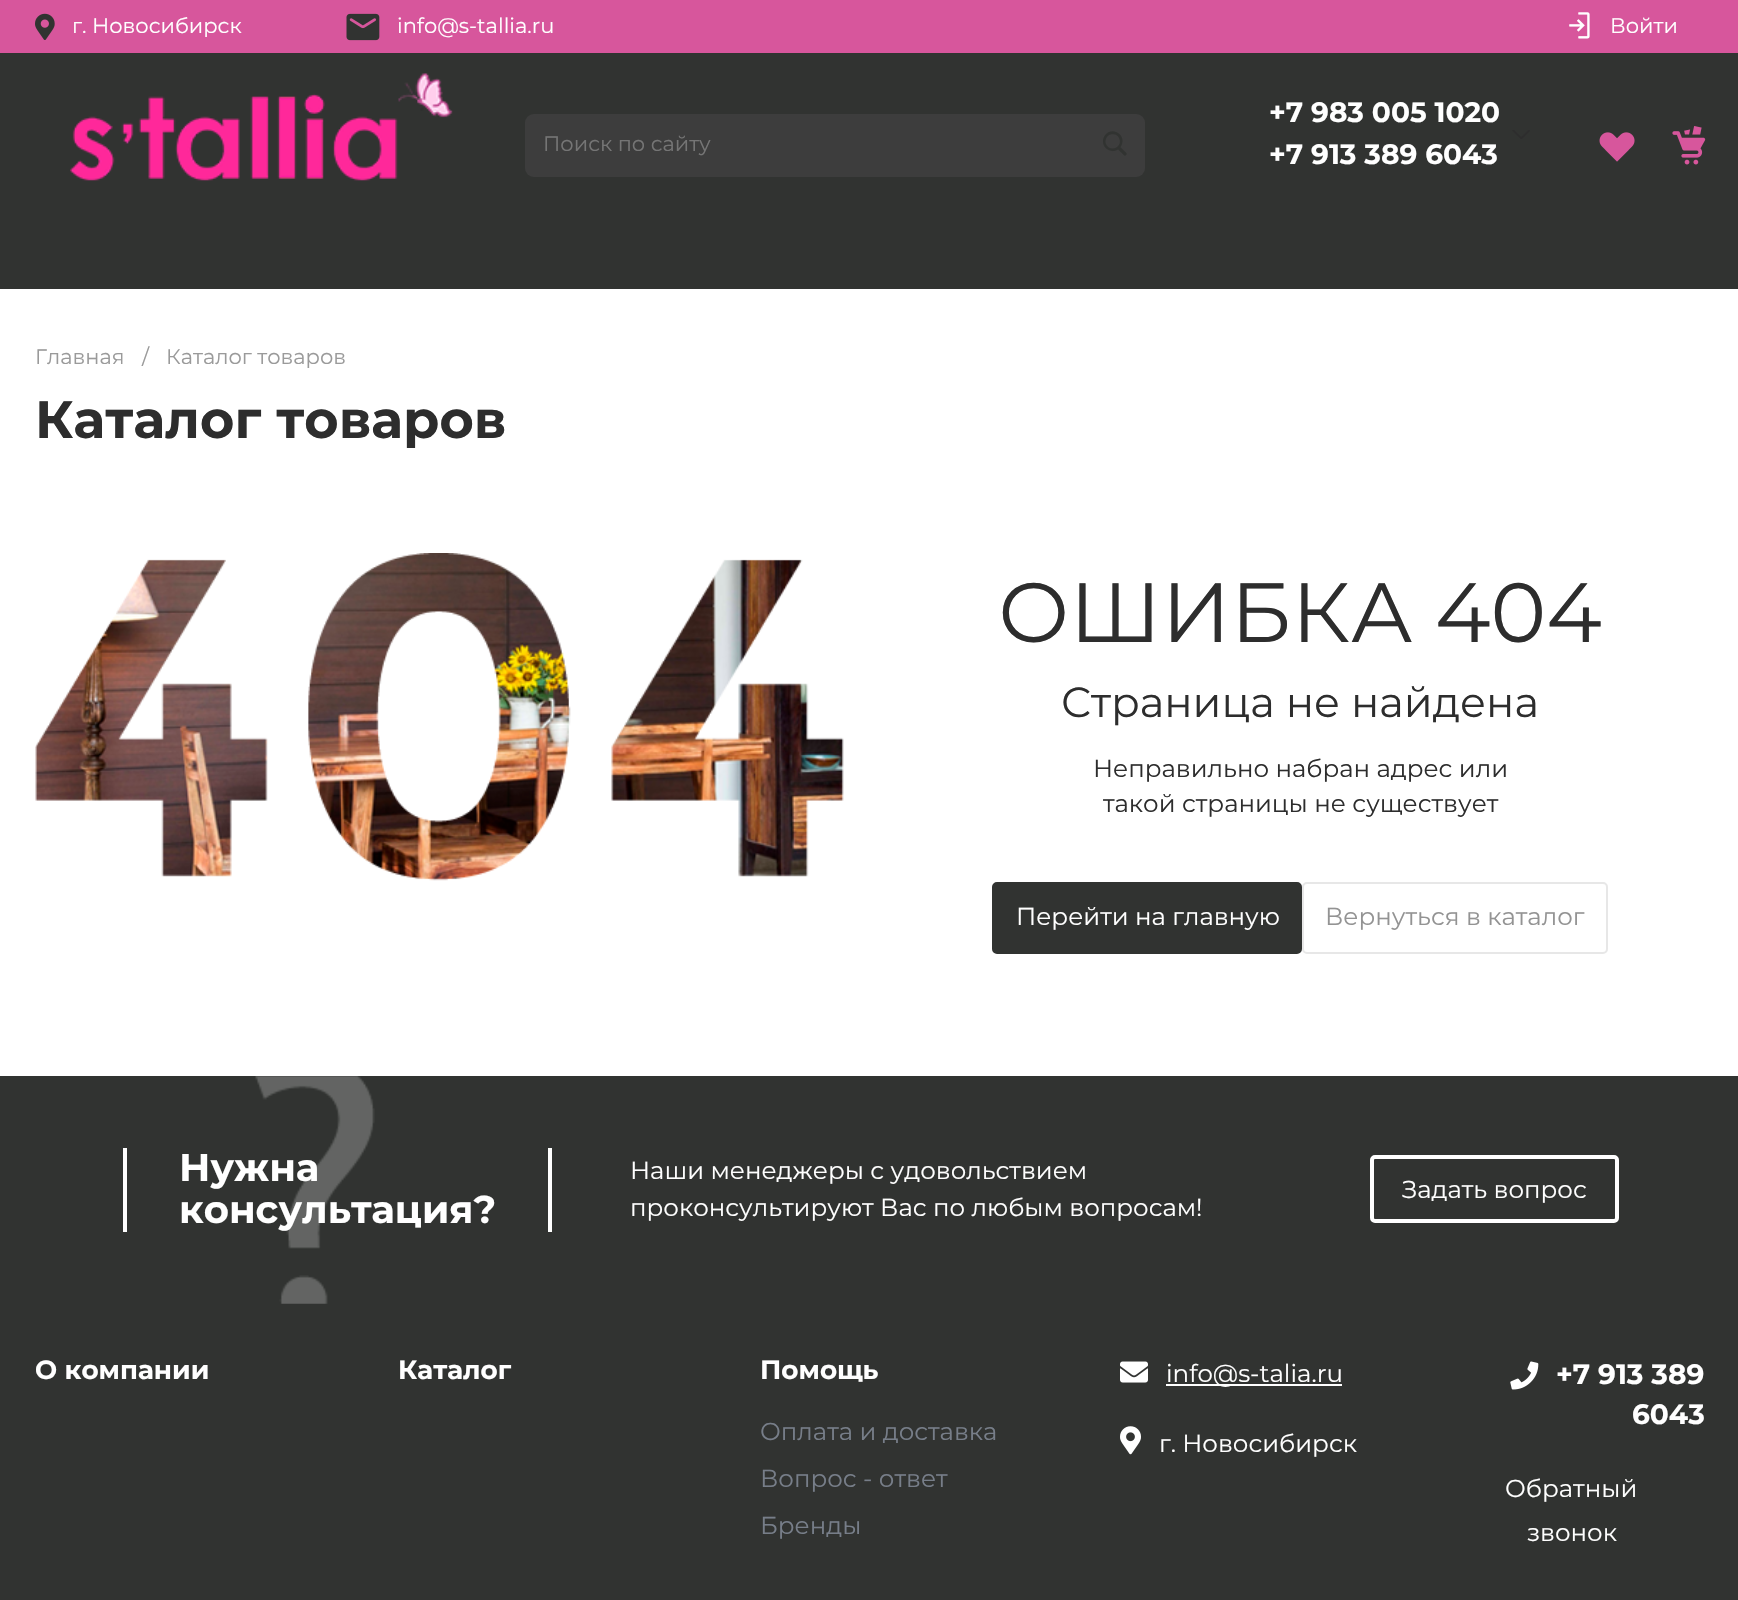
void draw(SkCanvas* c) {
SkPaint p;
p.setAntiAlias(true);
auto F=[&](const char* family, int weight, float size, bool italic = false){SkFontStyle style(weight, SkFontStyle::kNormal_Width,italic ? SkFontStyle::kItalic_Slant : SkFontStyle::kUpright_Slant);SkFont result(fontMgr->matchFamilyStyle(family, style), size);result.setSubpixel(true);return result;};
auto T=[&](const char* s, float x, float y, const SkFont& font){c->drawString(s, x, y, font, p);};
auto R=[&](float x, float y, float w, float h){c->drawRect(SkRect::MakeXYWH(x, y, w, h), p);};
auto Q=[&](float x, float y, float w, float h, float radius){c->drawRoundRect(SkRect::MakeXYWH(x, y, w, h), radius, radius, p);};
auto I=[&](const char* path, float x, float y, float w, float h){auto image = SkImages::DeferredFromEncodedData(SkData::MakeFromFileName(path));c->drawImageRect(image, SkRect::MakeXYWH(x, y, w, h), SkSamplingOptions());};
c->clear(0xffffffff);
p.setColor(0xffd7569c);
R(0,0,1738,53);
I("1.png",35,13,20,27);
auto f1 = F("Montserrat",400,21);
p.setColor(0xffffffff);
T("г. Новосибирск",72,33,f1);
I("2.png",346,13,34,28);
T("info@s-tallia.ru",397,33,f1);
I("3.png",1569,12,21,27);
T("Войти",1610,33,f1);
p.setColor(0xff313331);
R(0,53,1738,236);
I("4.png",70,73,383,108);
p.setColor(0xff3d3d3d);
Q(525,114,620,63,9);
p.setColor(0xff757575);
T("Поиск по сайту",543,151,f1);
I("5.png",1103,131,24,25);
auto f2 = F("Montserrat",700,28);
p.setColor(0xffffffff);
T("+7 983 005 1020",1269,122,f2);
T("+7 913 389 6043",1269,164,f2);
I("6.png",1512,130,18,9);
I("7.png",1599,132,36,30);
I("8.png",1672,126,34,39);
p.setColor(0xff9a9a9a);
T("Главная",35,364,f1);
T("/",142,364,f1);
T("Каталог товаров",166,364,f1);
c->save();
c->clipRect(SkRect::MakeXYWH(0,390,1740,58));
auto f3 = F("Montserrat",700,52.5);
p.setColor(0xff2d2d2d);
T("Каталог товаров",35,438,f3);
c->restore();
I("9.png",35,553,809,328);
auto f4 = F("Montserrat",400,84);
T("ОШИБКА 404",998,642,f4);
auto f5 = F("Montserrat",400,42);
T("Страница не найдена",1061,717,f5);
auto f6 = F("Montserrat",400,24.5);
T("Неправильно набран адрес или",1093,777,f6);
T("такой страницы не существует",1103,812,f6);
p.setColor(0xff313331);
c->drawRoundRect(SkRect::MakeXYWH(993,883,308,70),4,4,p);
p.setStroke(true);
p.setStrokeWidth(2);
c->drawRoundRect(SkRect::MakeXYWH(993,883,308,70),4,4,p);
p.setStroke(false);
p.setColor(0xffffffff);
T("Перейти на главную",1016,925,f6);
p.setStroke(true);
p.setColor(0xffe7e7e7);
c->drawRoundRect(SkRect::MakeXYWH(1303,883,304,70),4,4,p);
p.setStroke(false);
p.setColor(0xff939393);
T("Вернуться в каталог",1325,925,f6);
p.setColor(0xff313331);
R(0,1076,1738,524);
I("10.png",255,1076,120,228);
p.setColor(0xffffffff);
R(548,1148,4,84);
R(123,1148,4,84);
auto f7 = F("Montserrat",700,38.5);
T("Нужна",179,1181,f7);
T("консультация?",179,1223,f7);
T("Наши менеджеры с удовольствием",630,1179,f6);
T("проконсультируют Вас по любым вопросам!",630,1216,f6);
p.setStroke(true);
p.setStrokeWidth(4);
c->drawRoundRect(SkRect::MakeXYWH(1372,1157,245,64),3,3,p);
p.setStroke(false);
T("Задать вопрос",1402,1198,f6);
auto f8 = F("Montserrat",700,26.25);
T("О компании",35,1379,f8);
T("Каталог",398,1379,f8);
T("Помощь",760,1379,f8);
p.setColor(0xff777e89);
T("Оплата и доставка",760,1440,f6);
T("Вопрос - ответ",760,1487,f6);
T("Бренды",760,1534,f6);
I("11.png",1120,1361,28,22);
p.setColor(0xffffffff);
R(1166,1384,176,2);
T("info@s-talia.ru",1166,1382,f6);
I("12.png",1120,1426,21,29);
T("г. Новосибирск",1159,1452,f6);
I("13.png",1510,1361,29,29);
T("+7 913 389",1556,1384,f2);
T("6043",1632,1424,f2);
T("Обратный",1505,1497,f6);
T("звонок",1527,1541,f6);
}
